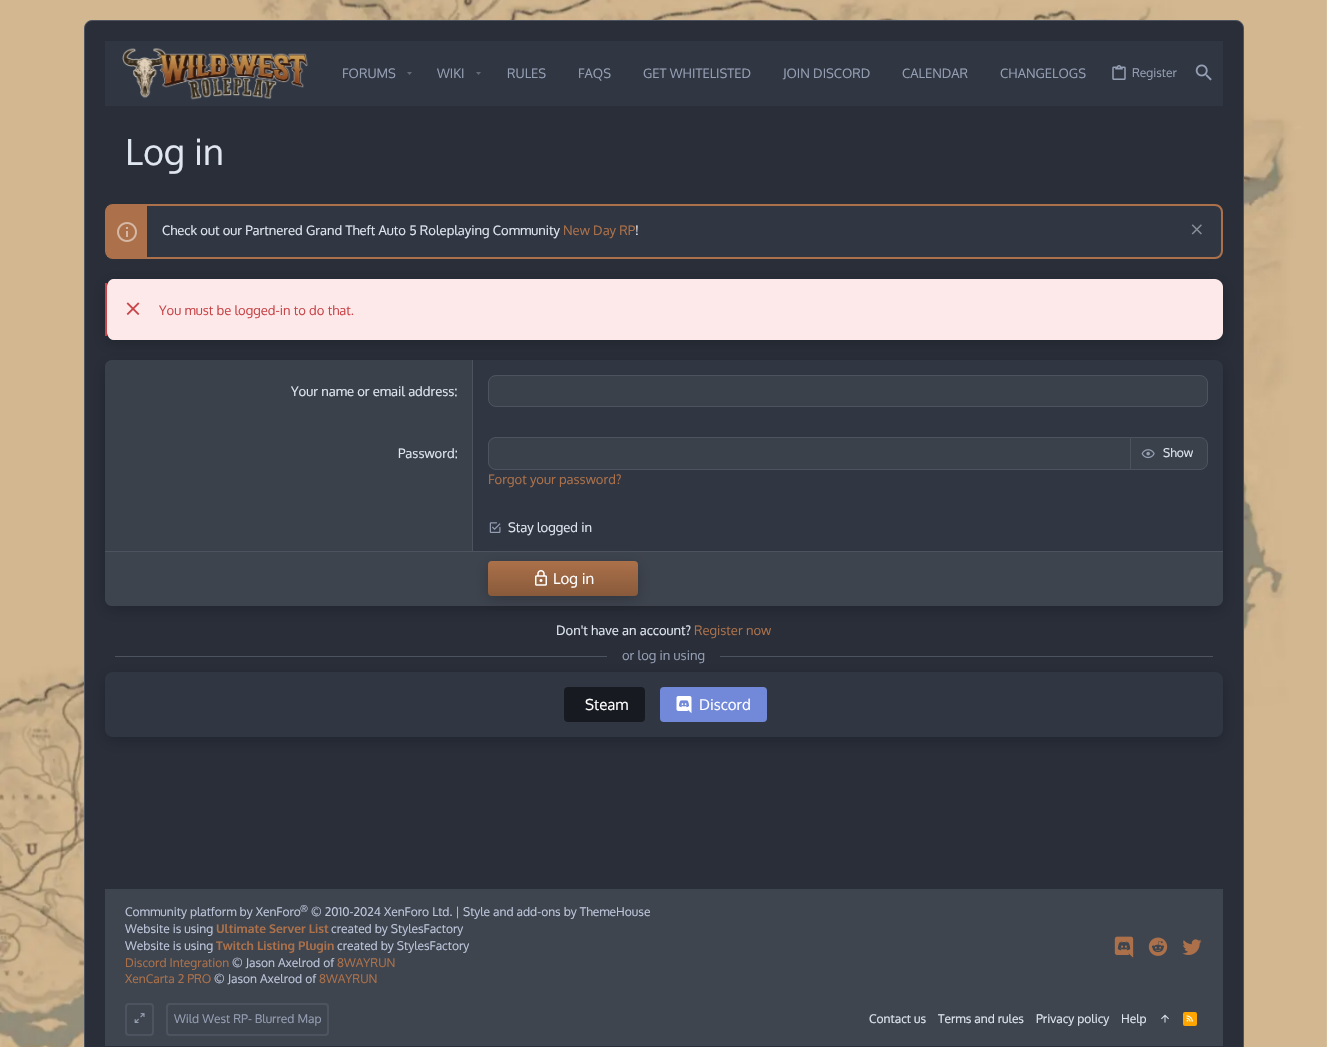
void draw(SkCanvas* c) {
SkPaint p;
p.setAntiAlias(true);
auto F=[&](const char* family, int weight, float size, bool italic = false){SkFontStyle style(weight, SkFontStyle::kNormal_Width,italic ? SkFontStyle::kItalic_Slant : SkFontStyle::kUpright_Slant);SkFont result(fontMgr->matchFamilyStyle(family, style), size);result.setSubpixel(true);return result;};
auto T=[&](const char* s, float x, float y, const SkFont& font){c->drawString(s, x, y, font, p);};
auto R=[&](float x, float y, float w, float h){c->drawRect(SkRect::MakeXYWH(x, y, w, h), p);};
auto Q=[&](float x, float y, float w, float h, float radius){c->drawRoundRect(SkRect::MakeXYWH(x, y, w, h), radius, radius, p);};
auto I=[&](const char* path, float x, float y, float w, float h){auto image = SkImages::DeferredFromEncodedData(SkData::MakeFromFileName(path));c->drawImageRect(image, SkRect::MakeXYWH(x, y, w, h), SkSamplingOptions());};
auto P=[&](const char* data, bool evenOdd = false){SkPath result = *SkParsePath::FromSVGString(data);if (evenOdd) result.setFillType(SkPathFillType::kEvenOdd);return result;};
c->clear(0xffffffff);
I("1.png",0,0,1327,1047);
p.setColor(0xff292e39);
c->drawRoundRect(SkRect::MakeXYWH(84.5,20.5,1159,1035),7.5,7.5,p);
p.setStroke(true);
p.setStrokeWidth(1);
p.setColor(0xff4d5460);
c->drawRoundRect(SkRect::MakeXYWH(84.5,20.5,1159,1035),7.5,7.5,p);
p.setStroke(false);
p.setColor(0xff313742);
R(105,41,1118,65);
I("2.png",122,48,186,52);
auto f1 = F("Oxygen",400,13);
p.setColor(0xff959fb4);
T("FORUMS",342,78,f1);
p.setColor(0xff636b7b);
c->drawPath(P("M407 72l2.5 3l2.5-3z"),p);
p.setColor(0xff959fb4);
T("WIKI",437,78,f1);
p.setColor(0xff636b7b);
c->drawPath(P("M476 72l2.5 3l2.5-3z"),p);
p.setColor(0xff959fb4);
T("RULES",507,78,f1);
T("FAQS",578,78,f1);
T("GET WHITELISTED",643,78,f1);
T("JOIN DISCORD",783,78,f1);
T("CALENDAR",902,78,f1);
T("CHANGELOGS",1000,78,f1);
I("3.png",1112,65,14,15);
auto f2 = F("Oxygen",400,12);
T("Register",1132,77,f2);
I("4.png",1195,64,17,17);
auto f3 = F("Oxygen",400,36);
p.setColor(0xffe0e6f0);
T("Log in",125,165,f3);
p.setColor(0xff313742);
c->drawRoundRect(SkRect::MakeXYWH(106,205,1116,53),7,7,p);
p.setStroke(true);
p.setStrokeWidth(2);
p.setColor(0xffac714a);
c->drawRoundRect(SkRect::MakeXYWH(106,205,1116,53),7,7,p);
p.setStroke(false);
R(107,206,40,51);
I("5.png",117,222,20,20);
p.setColor(0xffe0e6f0);
T("Check out our Partnered Grand Theft Auto 5 Roleplaying Community",162,235,f1);
p.setColor(0xffac714a);
T("New Day RP",563,235,f1);
p.setColor(0xffe0e6f0);
T("!",635,235,f1);
I("6.png",1191,224,11,11);
p.setColor(0x33000000);
p.setMaskFilter(SkMaskFilter::MakeBlur(kNormal_SkBlurStyle, 7.5));
c->drawRoundRect(SkRect::MakeXYWH(105,364,1118,246),8,8,p);
p.setMaskFilter(nullptr);
p.setColor(0xff313742);
Q(105,360,1118,246,8);
p.setColor(0x33000000);
p.setMaskFilter(SkMaskFilter::MakeBlur(kNormal_SkBlurStyle, 7.5));
c->drawRoundRect(SkRect::MakeXYWH(105,283,1118,61),8,8,p);
p.setMaskFilter(nullptr);
p.setColor(0xfffde9e9);
c->drawPath(P("M113 279h1102c4 0 8 4 8 8v45c0 4-4 8-8 8h-1102c-3 0-6-4-6-8v-45c0-4 3-8 6-8z"),p);
p.setColor(0xffc84448);
R(105,283,2,53);
I("7.png",126,302,14,13);
T("You must be logged-in to do that.",159,315,f1);
p.setColor(0xff3b414b);
c->drawPath(P("M112 360h361v62h-368v-55c0-4 3-7 7-7z"),p);
p.setColor(0xff4d5460);
R(472,360,1,191);
p.setColor(0xffe0e6f0);
T("Your name or email address:",291,396,f1);
p.setColor(0xff3b414b);
c->drawRoundRect(SkRect::MakeXYWH(488.5,375.5,719,31),7.5,7.5,p);
p.setStroke(true);
p.setStrokeWidth(1);
p.setColor(0xff4d5460);
c->drawRoundRect(SkRect::MakeXYWH(488.5,375.5,719,31),7.5,7.5,p);
p.setStroke(false);
p.setColor(0xff3b414b);
R(105,422,367,129);
p.setColor(0xffe0e6f0);
T("Password:",398,458,f1);
p.setColor(0xff3b414b);
c->drawPath(P("M496 437h634v33h-634c-4.5 0-8-3.5-8-8v-17c0-4.5 3.5-8 8-8z"),p);
p.setColor(0xff4d5460);
c->drawPath(P("M496 437h634v33h-634c-4 0-8-4-8-8v-17c0-4 4-8 8-8zm0 1h634v31h-634c-4 0-7-3-7-7v-17c0-4 3-7 7-7z",true),p);
p.setColor(0xff3b414b);
c->drawPath(P("M1130.5 437.5h69.5c4 0 7.5 3.5 7.5 7.5v17c0 4-3.5 7.5-7.5 7.5h-69.5z"),p);
p.setStroke(true);
p.setColor(0xff4d5460);
c->drawPath(P("M1130.5 437.5h69.5c4 0 7.5 3.5 7.5 7.5v17c0 4-3.5 7.5-7.5 7.5h-69.5z"),p);
I("8.png",1141,449,14,10);
p.setStroke(false);
p.setColor(0xffe0e6f0);
T("Show",1163,457,f2);
p.setColor(0xffac714a);
T("Forgot your password?",488,484,f1);
I("9.png",489,522,12,11);
p.setColor(0xffe0e6f0);
T("Stay logged in",508,532,f1);
p.setColor(0xe63f454f);
c->drawPath(P("M105 551h1118v48c0 4-3 7-7 7h-1104c-4 0-7-3-7-7z"),p);
p.setColor(0xff4d5460);
R(105,551,1118,1);
p.setColor(0x33000000);
p.setMaskFilter(SkMaskFilter::MakeBlur(kNormal_SkBlurStyle, 7.5));
c->drawRoundRect(SkRect::MakeXYWH(488,565,150,35),4,4,p);
p.setMaskFilter(nullptr);
{
const SkColor colors[] = {0xffac714a,0xff885a3b};
const float stops[] = {0,1};
const SkPoint ends[] = {{563,561}, {563,596}};
p.setShader(SkGradientShader::MakeLinear(ends, colors, stops, 2, SkTileMode::kClamp));
p.setAlpha(255);
}
Q(488,561,150,35,4);
I("10.png",535,570,12,16);
auto f4 = F("Oxygen",400,15);
p.setShader(nullptr);
p.setColor(0xffffffff);
T("Log in",553,584,f4);
p.setColor(0xffe0e6f0);
T("Don't have an account?",556,635,f1);
p.setColor(0xffac714a);
T("Register now",694,635,f1);
p.setColor(0x33000000);
p.setMaskFilter(SkMaskFilter::MakeBlur(kNormal_SkBlurStyle, 7.5));
c->drawRoundRect(SkRect::MakeXYWH(105,676,1118,65),8,8,p);
p.setMaskFilter(nullptr);
p.setColor(0xff4d5460);
R(115,656,492,1);
p.setColor(0xff959fb4);
T("or log in using",622,660,f1);
p.setColor(0xff4d5460);
R(720,656,493,1);
p.setColor(0xff313742);
Q(105,672,1118,65,8);
p.setColor(0xff171a21);
Q(564,687,81,35,4);
p.setColor(0xffffffff);
T("Steam",585,710,f4);
p.setColor(0xff7289da);
Q(660,687,107,35,4);
I("11.png",676,696,16,18);
p.setColor(0xffffffff);
T("Discord",699,710,f4);
p.setColor(0xff3f454f);
R(105,889,1118,157);
p.setColor(0xffbdc6db);
T("Community platform by XenForo",125,916,f2);
auto f5 = F("Oxygen",400,9);
T("®",300,912,f5);
T("© 2010-2024 XenForo Ltd. | Style and add-ons by ThemeHouse",311,916,f2);
T("Website is using",125,933,f2);
auto f6 = F("Oxygen",700,12);
p.setColor(0xffac714a);
T("Ultimate Server List",216,933,f6);
p.setColor(0xffbdc6db);
T("created by StylesFactory",331,933,f2);
T("Website is using",125,950,f2);
p.setColor(0xffac714a);
T("Twitch Listing Plugin",216,950,f6);
p.setColor(0xffbdc6db);
T("created by StylesFactory",337,950,f2);
p.setColor(0xffac714a);
T("Discord Integration",125,967,f2);
p.setColor(0xffbdc6db);
T("© Jason Axelrod of",232,967,f2);
p.setColor(0xffac714a);
T("8WAYRUN",337,967,f2);
T("XenCarta 2 PRO",125,983,f2);
p.setColor(0xffbdc6db);
T("© Jason Axelrod of",214,983,f2);
p.setColor(0xffac714a);
T("8WAYRUN",319,983,f2);
I("12.png",1114,936,20,22);
I("13.png",1148,937,20,19);
I("14.png",1182,939,20,16);
p.setStroke(true);
p.setStrokeWidth(2);
p.setColor(0xff4d5460);
c->drawRoundRect(SkRect::MakeXYWH(126,1004,27,31),3,3,p);
I("15.png",134,1013,11,10);
c->drawRoundRect(SkRect::MakeXYWH(167,1004,161,31),3,3,p);
p.setStroke(false);
p.setColor(0xff959fb4);
T("Wild West RP- Blurred Map",174,1023,f2);
p.setColor(0xffe0e6f0);
T("Contact us",869,1023,f2);
T("Terms and rules",938,1023,f2);
T("Privacy policy",1036,1023,f2);
T("Help",1121,1023,f2);
I("16.png",1161,1014,8,9);
p.setColor(0xffffa500);
Q(1183,1012,14,14,2);
I("17.png",1186,1015,7,7);
}
